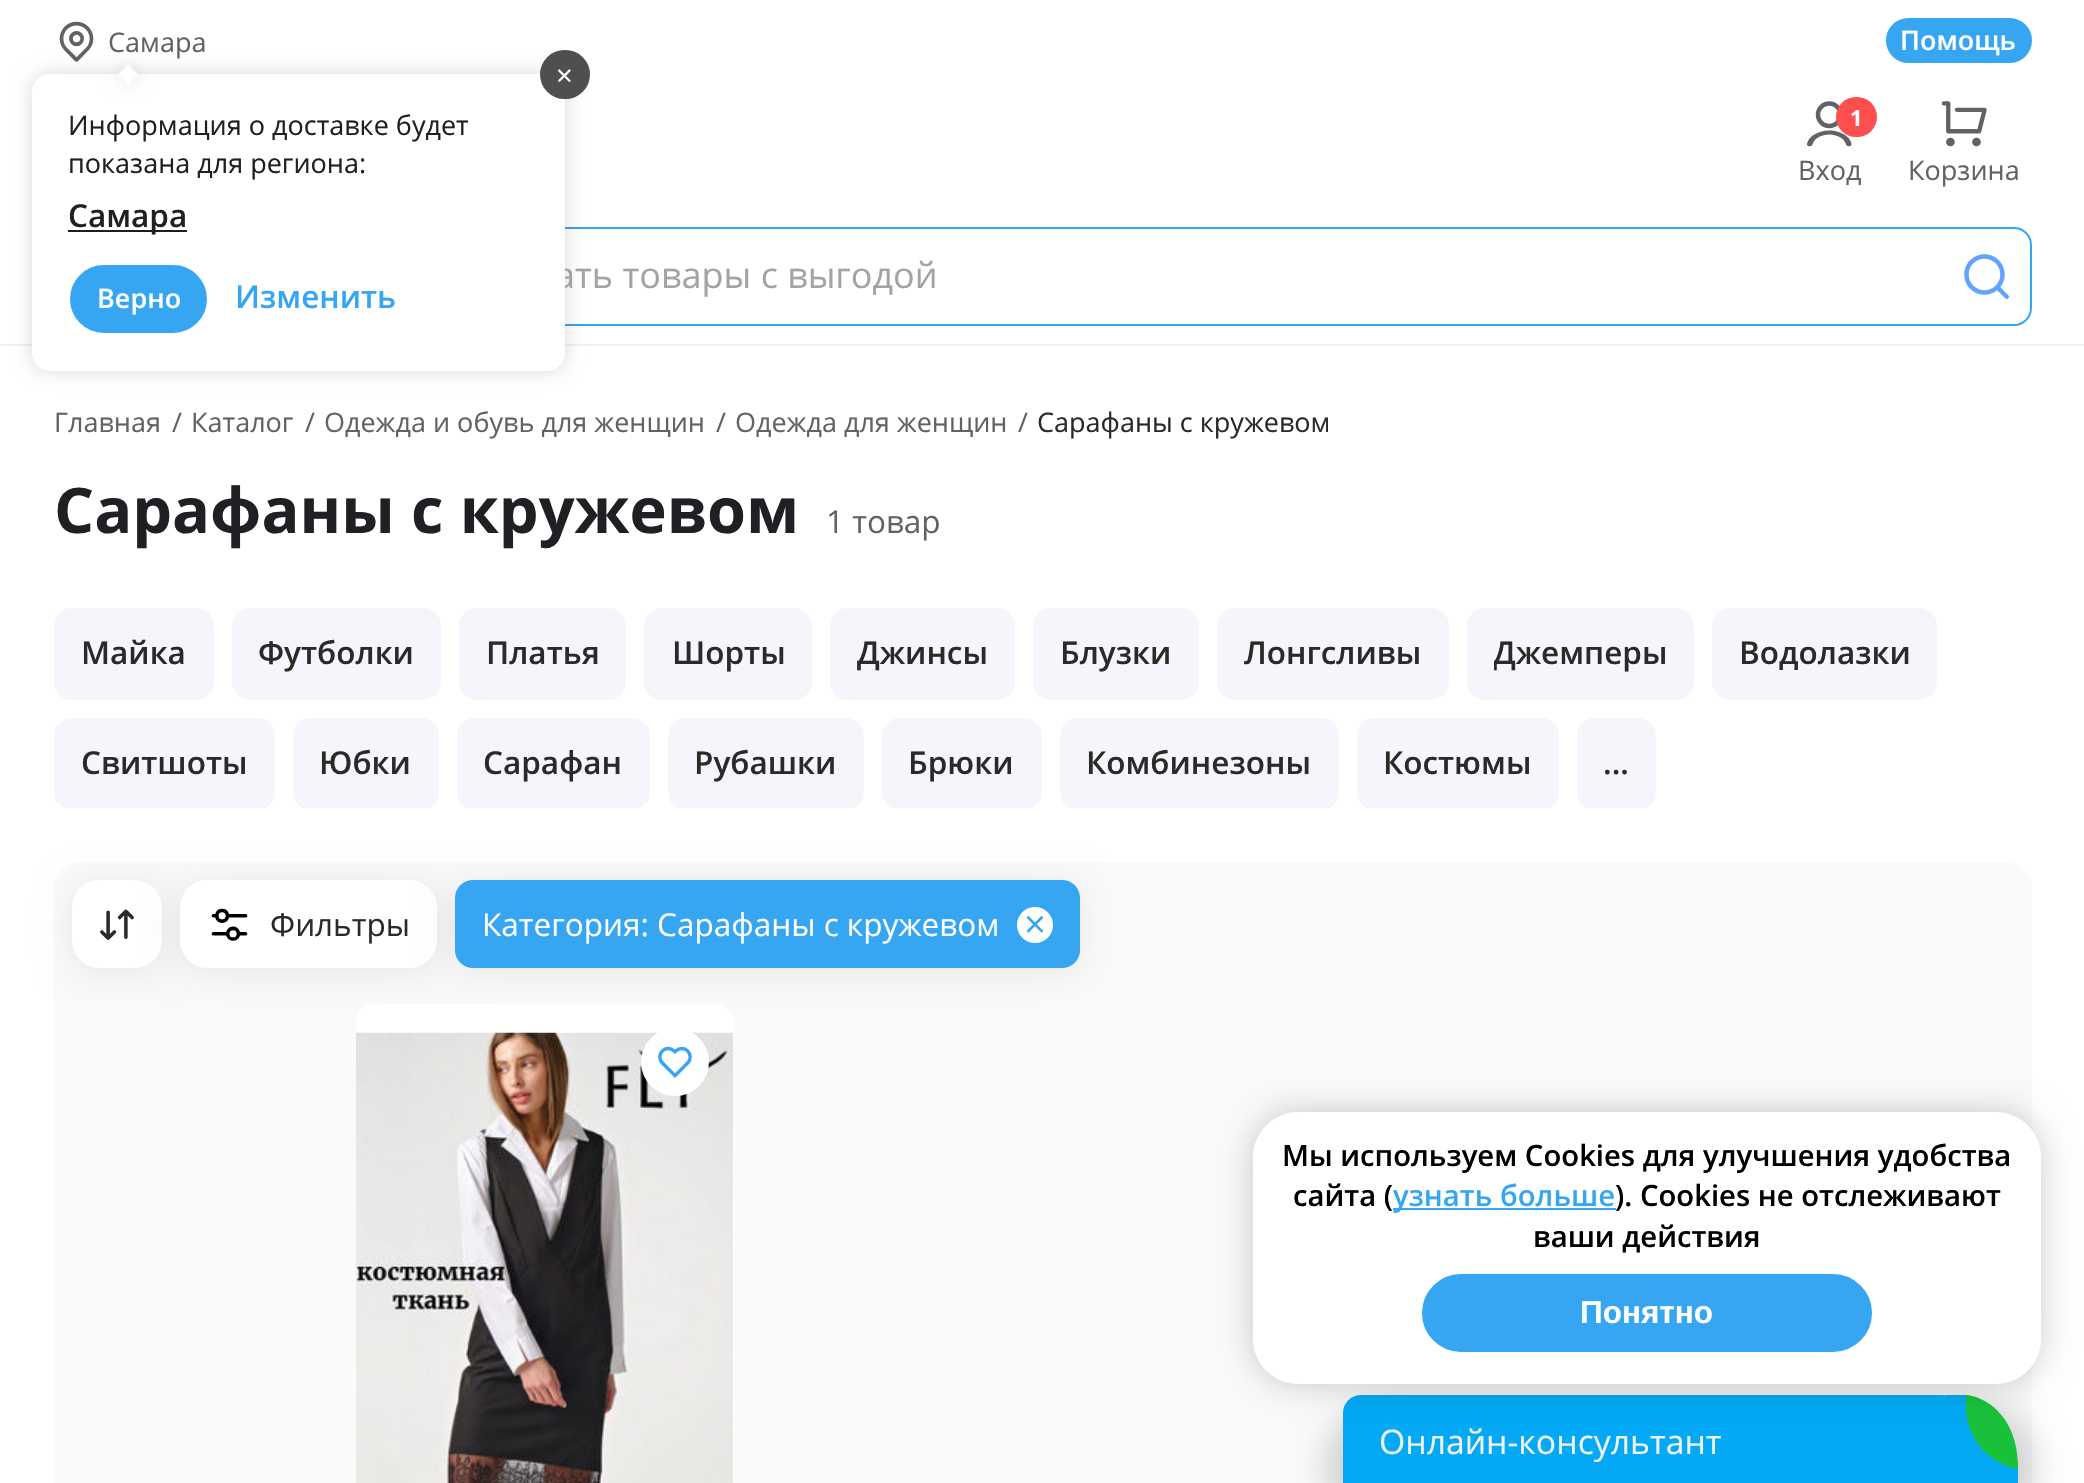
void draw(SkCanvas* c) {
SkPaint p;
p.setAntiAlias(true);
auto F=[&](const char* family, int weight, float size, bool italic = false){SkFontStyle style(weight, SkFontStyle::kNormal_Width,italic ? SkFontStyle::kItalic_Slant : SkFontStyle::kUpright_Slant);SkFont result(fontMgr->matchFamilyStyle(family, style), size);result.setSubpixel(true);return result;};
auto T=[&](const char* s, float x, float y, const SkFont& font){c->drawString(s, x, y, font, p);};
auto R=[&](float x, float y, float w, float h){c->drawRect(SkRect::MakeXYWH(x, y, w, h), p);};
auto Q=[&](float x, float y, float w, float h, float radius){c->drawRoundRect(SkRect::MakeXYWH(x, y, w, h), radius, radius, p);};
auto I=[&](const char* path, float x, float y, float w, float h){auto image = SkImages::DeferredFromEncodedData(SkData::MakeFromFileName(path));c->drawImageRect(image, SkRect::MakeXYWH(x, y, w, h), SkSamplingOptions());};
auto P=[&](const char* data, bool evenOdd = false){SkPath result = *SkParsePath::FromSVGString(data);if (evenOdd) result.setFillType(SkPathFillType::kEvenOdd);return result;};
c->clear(0xffffffff);
p.setColor(0xfff0f0f0);
R(0,344,2084,2);
I("1.png",59,21,35,41);
auto f1 = F("Open Sans",400,27);
p.setColor(0xff606266);
T("Самара",108,52,f1);
p.setStroke(true);
p.setStrokeWidth(2);
p.setColor(0xff36a6f2);
c->drawRoundRect(SkRect::MakeXYWH(451,228,1580,97),17,17,p);
p.setStroke(false);
p.setColor(0xffffffff);
Q(452,230,1578,94,18);
p.setColor(0x26000000);
p.setMaskFilter(SkMaskFilter::MakeBlur(kNormal_SkBlurStyle, 9));
c->drawRoundRect(SkRect::MakeXYWH(32,74,533,297),18,18,p);
p.setMaskFilter(nullptr);
auto f2 = F("Open Sans",400,36);
p.setColor(0xffa2a3a5);
T("ать товары с выгодой",555,288,f2);
p.setColor(0xffffffff);
Q(32,74,533,297,18);
p.setColor(0x26000000);
p.setMaskFilter(SkMaskFilter::MakeBlur(kNormal_SkBlurStyle, 9));
c->drawRect(SkRect::MakeXYWH(122,68,13,13),p);
p.setMaskFilter(nullptr);
p.setColor(0xffffffff);
c->drawPath(P("M128 64.5l10 9.5l-10 10l-9.5-10z"),p);
p.setColor(0xff4f4f50);
Q(540,50,50,49,24.5);
auto f3 = F("Open Sans",400,29.25);
p.setColor(0xffffffff);
T("×",556,86,f3);
p.setColor(0xff1e2023);
T("Информация о доставке будет",68,135,f1);
T("показана для региона:",68,173,f1);
p.setColor(0xff1d1e1f);
R(68,230,119,2);
auto f4 = F("Open Sans",600,31.5);
p.setColor(0xff1e2023);
T("Самара",68,227,f4);
p.setColor(0xff36a6f2);
c->drawRoundRect(SkRect::MakeXYWH(69,264,139,70),35,35,p);
p.setStroke(true);
p.setColor(0xffffffff);
c->drawRoundRect(SkRect::MakeXYWH(69,264,139,70),35,35,p);
auto f5 = F("Open Sans",600,27);
p.setStroke(false);
T("Верно",97,308,f5);
p.setColor(0xff36a6f2);
T("Изменить",235,308,f4);
p.setColor(0xff36a5f2);
c->drawRoundRect(SkRect::MakeXYWH(1887,19,144,43),21.5,21.5,p);
p.setStroke(true);
p.setColor(0xff36a6f2);
c->drawRoundRect(SkRect::MakeXYWH(1887,19,144,43),21.5,21.5,p);
p.setStroke(false);
p.setColor(0xffffffff);
T("Помощь",1900,50,f5);
I("2.png",1807,101,45,46);
p.setColor(0xffff4e4e);
Q(1836,97,41,40,20);
auto f6 = F("Open Sans",700,22);
p.setColor(0xffffffff);
T("1",1850,126,f6);
p.setColor(0xff606266);
T("Вход",1798,180,f1);
I("3.png",1941,101,46,46);
T("Корзина",1908,180,f1);
I("4.png",1964,254,46,46);
T("Главная",54,432,f1);
T("/",172,432,f1);
T("Каталог",191,432,f1);
T("/",305,432,f1);
T("Одежда и обувь для женщин",324,432,f1);
T("/",716,432,f1);
T("Одежда для женщин",735,432,f1);
T("/",1018,432,f1);
p.setColor(0xff2b2a29);
T("Сарафаны с кружевом",1037,432,f1);
auto f7 = F("Open Sans",700,63);
p.setColor(0xff1e2023);
T("Сарафаны с кружевом",54,533,f7);
auto f8 = F("Open Sans",400,31.5);
p.setColor(0xff606266);
T("1 товар",826,533,f8);
p.setColor(0xfff5f6fb);
Q(54,608,160,92,18);
p.setColor(0xff2b2a29);
T("Майка",81,664,f4);
p.setColor(0xfff5f6fb);
Q(232,608,209,92,18);
p.setColor(0xff2b2a29);
T("Футболки",258,664,f4);
p.setColor(0xfff5f6fb);
Q(459,608,167,92,18);
p.setColor(0xff2b2a29);
T("Платья",486,664,f4);
p.setColor(0xfff5f6fb);
Q(644,608,168,92,18);
p.setColor(0xff2b2a29);
T("Шорты",672,664,f4);
p.setColor(0xfff5f6fb);
Q(830,608,185,92,18);
p.setColor(0xff2b2a29);
T("Джинсы",857,664,f4);
p.setColor(0xfff5f6fb);
Q(1033,608,166,92,18);
p.setColor(0xff2b2a29);
T("Блузки",1060,664,f4);
p.setColor(0xfff5f6fb);
Q(1217,608,232,92,18);
c->save();
c->clipRect(SkRect::MakeXYWH(1244,635,178,38));
p.setColor(0xff2b2a29);
T("Лонгсливы",1244,664,f4);
c->restore();
p.setColor(0xfff5f6fb);
Q(1467,608,227,92,18);
c->save();
c->clipRect(SkRect::MakeXYWH(1494,635,173,38));
p.setColor(0xff2b2a29);
T("Джемперы",1493,664,f4);
c->restore();
p.setColor(0xfff5f6fb);
Q(1712,608,225,92,18);
p.setColor(0xff2b2a29);
T("Водолазки",1739,664,f4);
c->save();
c->clipRect(SkRect::MakeXYWH(54,608,1978,200));
p.setColor(0xfff5f6fb);
Q(54,718,221,92,18);
c->restore();
p.setColor(0xff2b2a29);
T("Свитшоты",81,774,f4);
c->save();
c->clipRect(SkRect::MakeXYWH(54,608,1978,200));
p.setColor(0xfff5f6fb);
Q(293,718,146,92,18);
c->restore();
p.setColor(0xff2b2a29);
T("Юбки",319,774,f4);
c->save();
c->clipRect(SkRect::MakeXYWH(54,608,1978,200));
p.setColor(0xfff5f6fb);
Q(457,718,193,92,18);
c->restore();
p.setColor(0xff2b2a29);
T("Сарафан",483,774,f4);
c->save();
c->clipRect(SkRect::MakeXYWH(54,608,1978,200));
p.setColor(0xfff5f6fb);
Q(668,718,196,92,18);
c->restore();
p.setColor(0xff2b2a29);
T("Рубашки",694,774,f4);
c->save();
c->clipRect(SkRect::MakeXYWH(54,608,1978,200));
p.setColor(0xfff5f6fb);
Q(882,718,160,92,18);
c->restore();
p.setColor(0xff2b2a29);
T("Брюки",908,774,f4);
c->save();
c->clipRect(SkRect::MakeXYWH(54,608,1978,200));
p.setColor(0xfff5f6fb);
Q(1060,718,279,92,18);
c->restore();
p.setColor(0xff2b2a29);
T("Комбинезоны",1086,774,f4);
c->save();
c->clipRect(SkRect::MakeXYWH(54,608,1978,200));
p.setColor(0xfff5f6fb);
Q(1357,718,202,92,18);
c->restore();
p.setColor(0xff2b2a29);
T("Костюмы",1383,774,f4);
c->save();
c->clipRect(SkRect::MakeXYWH(54,608,1978,200));
p.setColor(0xfff5f6fb);
Q(1577,718,79,92,18);
c->restore();
p.setColor(0xff2b2a29);
T("...",1603,774,f4);
p.setColor(0xfffafafa);
c->drawPath(P("M81 862h1924c15 0 27 12 27 27v115h-1978v-115c0-15 12-27 27-27z"),p);
R(54,1004,1978,479);
p.setColor(0x14000000);
p.setMaskFilter(SkMaskFilter::MakeBlur(kNormal_SkBlurStyle, 18));
c->drawRoundRect(SkRect::MakeXYWH(72,884,90,88),27,27,p);
p.setMaskFilter(nullptr);
p.setColor(0xffffffff);
Q(72,880,90,88,27);
I("5.png",100,909,34,31);
p.setColor(0x14000000);
p.setMaskFilter(SkMaskFilter::MakeBlur(kNormal_SkBlurStyle, 18));
c->drawRoundRect(SkRect::MakeXYWH(180,884,257,88),27,27,p);
p.setMaskFilter(nullptr);
p.setColor(0xffffffff);
Q(180,880,257,88,27);
I("6.png",211,908,37,33);
p.setColor(0xff2b2a29);
T("Фильтры",270,936,f8);
p.setColor(0x14000000);
p.setMaskFilter(SkMaskFilter::MakeBlur(kNormal_SkBlurStyle, 18));
c->drawRoundRect(SkRect::MakeXYWH(455,884,625,88),18,18,p);
p.setMaskFilter(nullptr);
p.setColor(0xff36a6f2);
Q(455,880,625,88,18);
p.setColor(0xffffffff);
T("Категория: Сарафаны с кружевом",482,936,f8);
c->drawCircle(1035,925,18,p);
I("7.png",1026,916,18,17);
Q(356,1004,378,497,18);
I("9.png",356,1032,378,451);
c->drawCircle(675,1062,34,p);
I("8.png",658,1046,34,32);
p.setColor(0x2b000000);
p.setMaskFilter(SkMaskFilter::MakeBlur(kNormal_SkBlurStyle, 16));
c->drawRoundRect(SkRect::MakeXYWH(1325,1404,711,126),95,95,p);
p.setMaskFilter(nullptr);
p.setColor(0xff03a9f4);
c->drawPath(P("M1361 1395h580c42.5 0 77 34.5 77 77v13h-675v-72c0-10 8-18 18-18z"),p);
c->drawPath(P("M1946 1395h21l51 75v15h-72z",true),p);
p.setColor(0xff18c139);
c->drawPath(P("M1966 1395c9 0 52 12 52 74c-29-5-52-31-52-62z",true),p);
p.setColor(0x33000000);
p.setMaskFilter(SkMaskFilter::MakeBlur(kNormal_SkBlurStyle, 17));
c->drawRoundRect(SkRect::MakeXYWH(1253,1112,788,272),45,45,p);
p.setMaskFilter(nullptr);
p.setColor(0xffffffff);
Q(1253,1112,788,272,45);
auto f9 = F("Open Sans",600,29.25);
p.setColor(0xff000000);
T("Мы используем Сookies для улучшения удобства",1282,1166,f9);
T("сайта (",1293,1206,f9);
p.setColor(0xff36a6f2);
R(1393,1208,223,2);
T("узнать больше",1393,1206,f9);
p.setColor(0xff000000);
T("). Cookies не отслеживают",1615,1206,f9);
T("ваши действия",1533,1247,f9);
p.setColor(0xff36a6f2);
c->drawRoundRect(SkRect::MakeXYWH(1423,1275,448,76),38,38,p);
p.setStroke(true);
c->drawRoundRect(SkRect::MakeXYWH(1423,1275,448,76),38,38,p);
auto f10 = F("Liberation Sans",700,31.5);
p.setStroke(false);
p.setColor(0xffffffff);
T("Понятно",1580,1323,f10);
auto f11 = F("Open Sans",400,33.75);
p.setColor(0xfff0f1f1);
T("Онлайн-консультант",1379,1454,f11);
}
